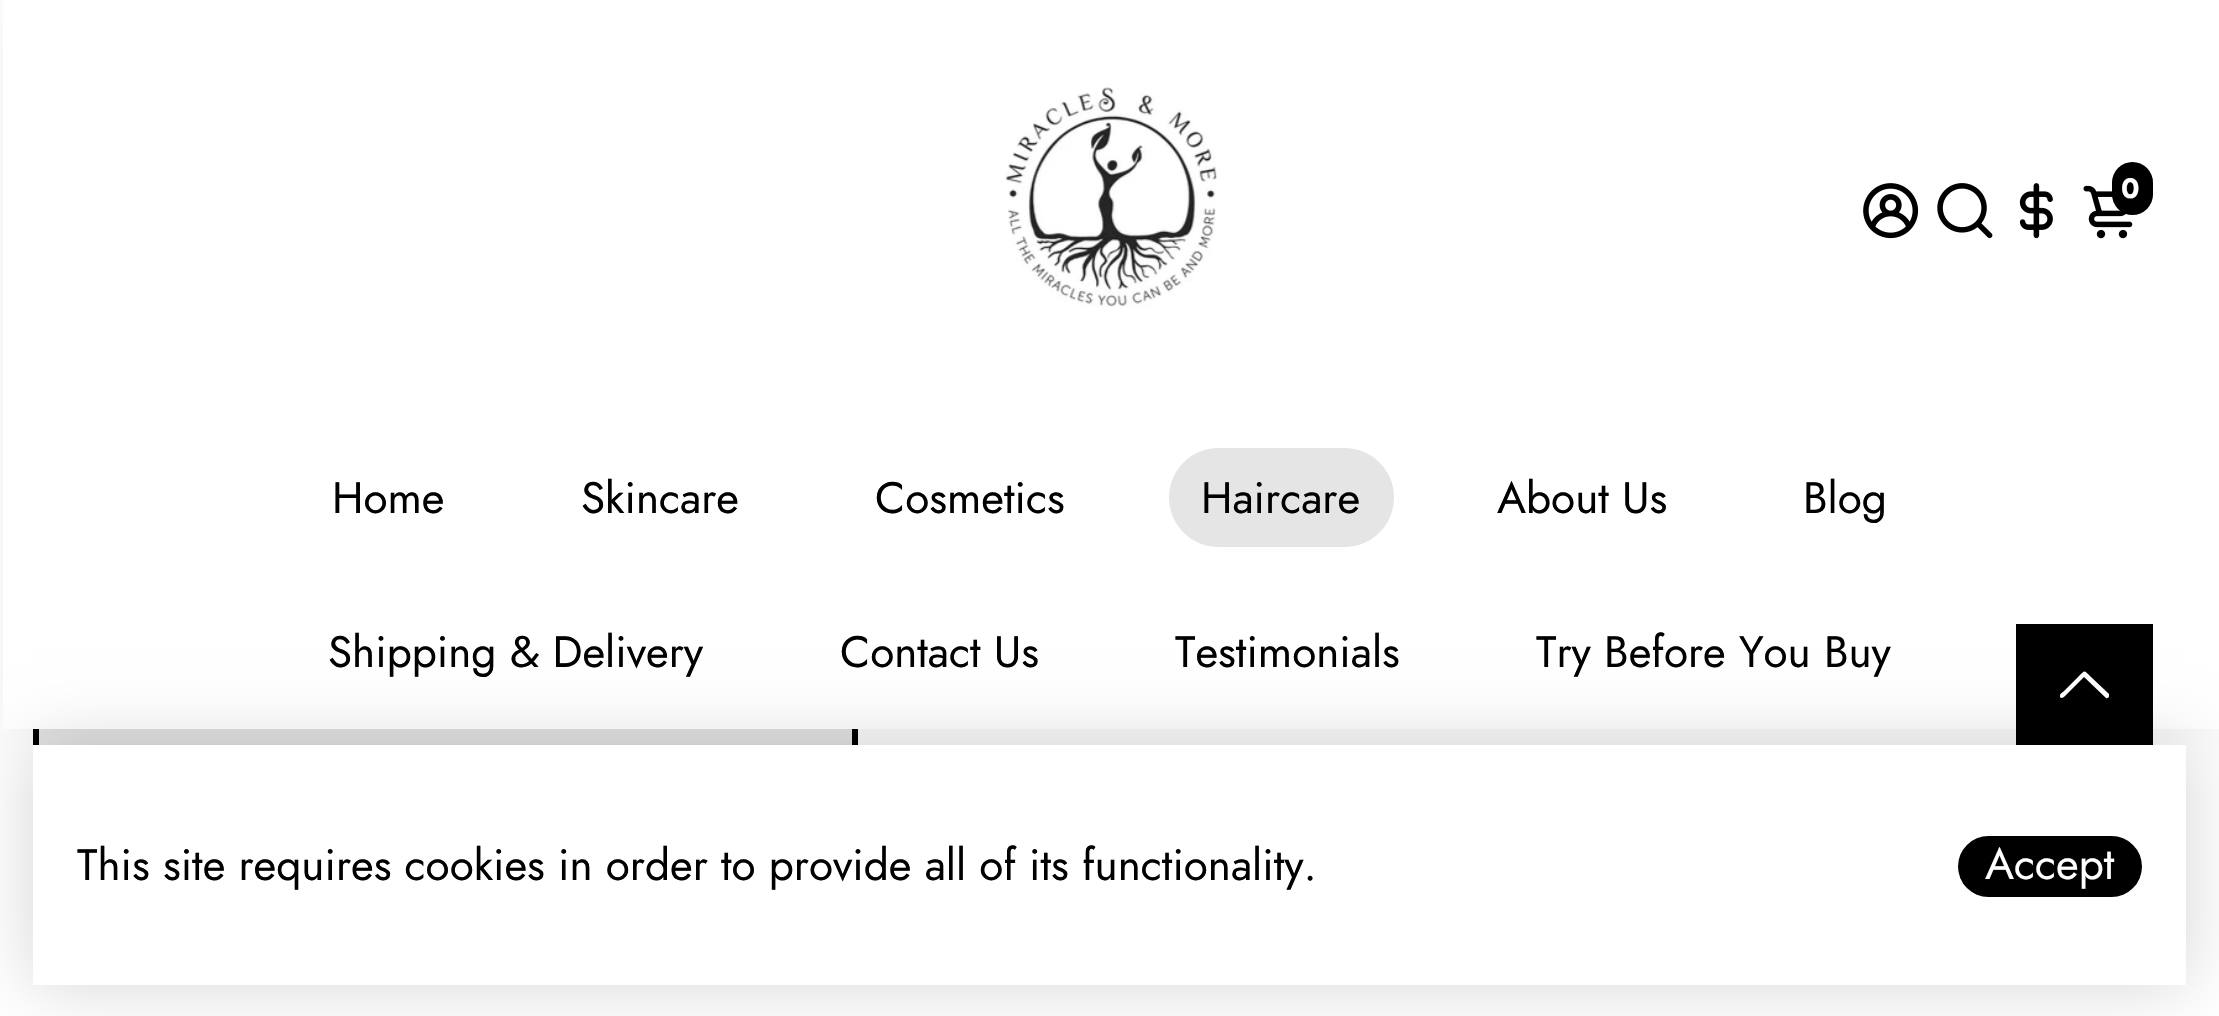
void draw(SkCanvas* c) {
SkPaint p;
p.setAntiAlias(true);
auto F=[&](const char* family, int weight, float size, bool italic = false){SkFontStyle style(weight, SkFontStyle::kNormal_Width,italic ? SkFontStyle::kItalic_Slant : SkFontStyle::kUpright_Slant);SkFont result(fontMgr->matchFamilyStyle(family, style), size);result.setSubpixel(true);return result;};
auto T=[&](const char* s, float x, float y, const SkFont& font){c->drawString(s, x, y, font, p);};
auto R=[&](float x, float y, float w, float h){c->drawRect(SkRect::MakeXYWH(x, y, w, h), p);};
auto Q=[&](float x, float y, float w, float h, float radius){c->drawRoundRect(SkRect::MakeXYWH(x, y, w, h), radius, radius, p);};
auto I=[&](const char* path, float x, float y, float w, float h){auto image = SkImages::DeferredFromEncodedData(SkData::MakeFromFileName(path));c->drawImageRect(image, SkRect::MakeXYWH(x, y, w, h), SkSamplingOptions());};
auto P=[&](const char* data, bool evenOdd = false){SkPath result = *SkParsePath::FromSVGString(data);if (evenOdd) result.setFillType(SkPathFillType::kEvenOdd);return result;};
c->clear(0xffffffff);
p.setColor(0xffe6e6e6);
R(39,729,813,16);
p.setStroke(true);
p.setStrokeWidth(6);
p.setColor(0xff000000);
c->drawRect(SkRect::MakeXYWH(36,-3,819,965),p);
p.setStroke(false);
p.setColor(0x0f000000);
p.setMaskFilter(SkMaskFilter::MakeBlur(kNormal_SkBlurStyle, 27.5));
c->drawRect(SkRect::MakeXYWH(3,0,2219,729),p);
p.setMaskFilter(nullptr);
p.setColor(0xffffffff);
R(3,0,2216,729);
I("1.png",1005,87,213,220);
I("2.png",1863,183,56,56);
I("3.png",1937,183,56,56);
I("4.png",2019,183,34,56);
I("5.png",2083,185,50,54);
p.setColor(0xff000000);
Q(2112,162,41,53,20.5);
auto f1 = F("Jost",700,28);
p.setColor(0xffffffff);
T("0",2121,198,f1);
auto f2 = F("Jost",400,44);
p.setColor(0xff000000);
T("Home",332,513,f2);
T("Skincare",581,513,f2);
T("Cosmetics",875,513,f2);
p.setColor(0x1a000000);
Q(1169,448,225,99,49.5);
p.setColor(0xff000000);
T("Haircare",1201,513,f2);
T("About Us",1497,513,f2);
T("Blog",1803,513,f2);
T("Shipping & Delivery",328,667,f2);
T("Contact Us",840,667,f2);
T("Testimonials",1175,667,f2);
T("Try Before You Buy",1536,667,f2);
R(2016,624,137,121);
c->save();
c->clipRect(SkRect::MakeXYWH(2060,660,49,50));
p.setColor(0xffffffff);
c->drawPath(P("M2109 694l-19-18c-6-6-5-6-11 0l-15 15c-1 1-6 4-4 6c2 3 6-2 7-3l17-17l22 21c2 1 4-2 3-4z"),p);
c->restore();
p.setColor(0x29000000);
p.setMaskFilter(SkMaskFilter::MakeBlur(kNormal_SkBlurStyle, 33));
c->drawRect(SkRect::MakeXYWH(33,745,2153,240),p);
p.setMaskFilter(nullptr);
p.setColor(0xffffffff);
R(33,745,2153,240);
p.setColor(0xff000000);
T("This site requires cookies in order to provide all of its functionality.",77,880,f2);
Q(1958,836,184,61,30.5);
p.setColor(0xffffffff);
T("Accept",1985,879,f2);
}
